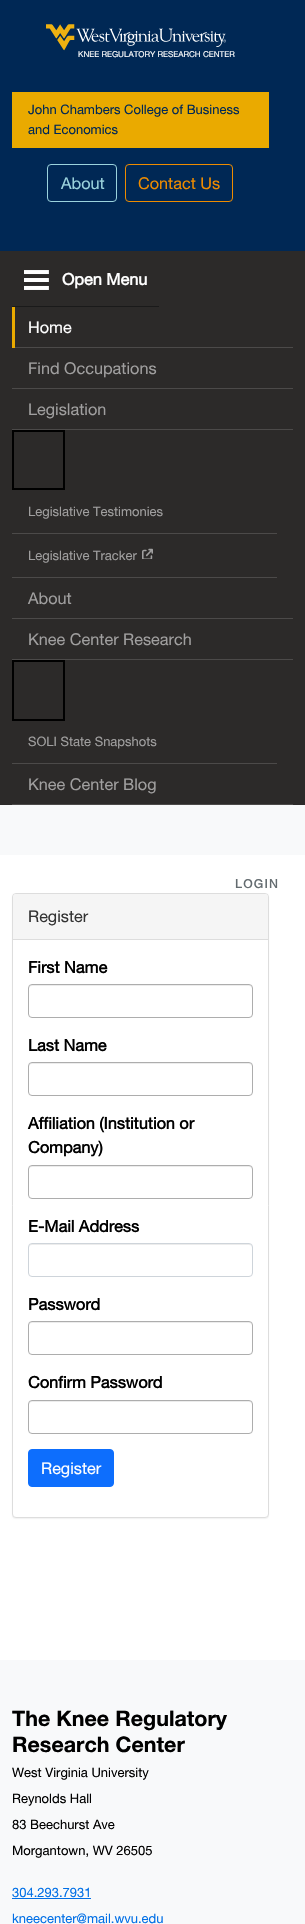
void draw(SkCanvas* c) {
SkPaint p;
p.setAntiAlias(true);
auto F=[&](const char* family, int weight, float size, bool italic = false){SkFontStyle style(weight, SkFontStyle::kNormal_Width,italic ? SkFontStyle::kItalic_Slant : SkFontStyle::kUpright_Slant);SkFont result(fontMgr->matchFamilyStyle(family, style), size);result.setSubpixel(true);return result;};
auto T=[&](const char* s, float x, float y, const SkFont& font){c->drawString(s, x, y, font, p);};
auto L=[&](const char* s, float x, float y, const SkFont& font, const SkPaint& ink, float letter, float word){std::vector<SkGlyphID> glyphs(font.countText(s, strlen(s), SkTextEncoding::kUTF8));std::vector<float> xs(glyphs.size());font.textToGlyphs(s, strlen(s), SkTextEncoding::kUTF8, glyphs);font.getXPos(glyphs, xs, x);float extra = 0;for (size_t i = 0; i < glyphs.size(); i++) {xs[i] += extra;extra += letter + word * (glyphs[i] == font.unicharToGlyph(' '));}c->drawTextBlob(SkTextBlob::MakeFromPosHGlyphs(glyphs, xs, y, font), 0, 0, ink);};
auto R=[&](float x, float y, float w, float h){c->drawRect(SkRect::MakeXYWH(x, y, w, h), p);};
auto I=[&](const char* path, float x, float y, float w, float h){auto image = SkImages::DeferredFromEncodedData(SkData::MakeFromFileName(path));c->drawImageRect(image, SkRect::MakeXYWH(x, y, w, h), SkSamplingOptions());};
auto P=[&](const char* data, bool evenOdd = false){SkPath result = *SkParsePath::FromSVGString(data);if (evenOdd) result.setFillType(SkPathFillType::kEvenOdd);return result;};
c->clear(0xffffffff);
p.setColor(0xff002855);
R(0,0,305,251);
I("1.png",46,24,180,27);
auto f1 = F("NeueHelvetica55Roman",400,8.1);
p.setColor(0xffffffff);
T("KNEE REGULATORY RESEARCH CENTER",78,57,f1);
p.setColor(0xffeaaa00);
R(12,92,257,56);
auto f2 = F("NeueHelvetica55Roman",400,13);
p.setColor(0xff002855);
T("John Chambers College of Business",28,114,f2);
T("and Economics",28,134,f2);
p.setStroke(true);
p.setStrokeWidth(1);
p.setColor(0xff9bd3dd);
c->drawRoundRect(SkRect::MakeXYWH(47.5,164.5,69,37),3.5,3.5,p);
auto f3 = F("NeueHelvetica55Roman",400,16.25);
p.setStroke(false);
T("About",61,189,f3);
p.setStroke(true);
p.setColor(0xffed8b00);
c->drawRoundRect(SkRect::MakeXYWH(125.5,164.5,107,37),3.5,3.5,p);
p.setStroke(false);
T("Contact Us",138,189,f3);
p.setColor(0xff2c2a29);
R(0,251,305,554);
p.setColor(0xff1a1a1a);
R(12,306,147,1);
I("2.png",24,270,25,20);
auto f4 = F("NeueHelvetica55Roman",700,16.25);
p.setColor(0xffffffff);
T("Open Menu",62,285,f4);
p.setColor(0xff4c4a49);
R(12,347,281,1);
p.setColor(0xffeaaa00);
R(12,307,3,41);
p.setColor(0xffffffff);
T("Home",28,333,f3);
p.setColor(0xff4c4a49);
R(12,388,281,1);
p.setColor(0xffa09f9f);
T("Find Occupations",28,374,f3);
p.setColor(0xff4c4a49);
R(12,429,281,1);
p.setColor(0xffa09f9f);
T("Legislation",28,415,f3);
p.setStroke(true);
p.setStrokeWidth(2);
p.setColor(0xff000000);
c->drawRect(SkRect::MakeXYWH(13,431,51,58),p);
p.setStroke(false);
p.setColor(0xff4c4a49);
R(12,533,265,1);
p.setColor(0xffa09f9f);
T("Legislative Testimonies",28,516,f2);
p.setColor(0xff4c4a49);
R(12,577,265,1);
p.setColor(0xffa09f9f);
T("Legislative Tracker",28,560,f2);
I("3.png",142,548,11,11);
p.setColor(0xff4c4a49);
R(12,618,281,1);
p.setColor(0xffa09f9f);
T("About",28,604,f3);
p.setColor(0xff4c4a49);
R(12,659,281,1);
p.setColor(0xffa09f9f);
T("Knee Center Research",28,645,f3);
p.setStroke(true);
p.setColor(0xff000000);
c->drawRect(SkRect::MakeXYWH(13,661,51,59),p);
p.setStroke(false);
p.setColor(0xff4c4a49);
R(12,763,265,1);
p.setColor(0xffa09f9f);
T("SOLI State Snapshots",28,746,f2);
p.setColor(0xff4c4a49);
R(12,804,281,1);
p.setColor(0xffa09f9f);
T("Knee Center Blog",28,790,f3);
p.setColor(0xfff8f9fa);
R(0,805,305,50);
auto f5 = F("NeueHelvetica55Roman",700,12);
p.setColor(0xff636b6f);
L("LOGIN",235,888,f5,p,1.5,0);
p.setColor(0x0d000000);
p.setMaskFilter(SkMaskFilter::MakeBlur(kNormal_SkBlurStyle, .5));
c->drawRoundRect(SkRect::MakeXYWH(12,894,257,625),4,4,p);
p.setMaskFilter(nullptr);
p.setColor(0xffffffff);
c->drawRoundRect(SkRect::MakeXYWH(12.5,893.5,256,624),3.5,3.5,p);
p.setStroke(true);
p.setStrokeWidth(1);
p.setColor(0xffdddddd);
c->drawRoundRect(SkRect::MakeXYWH(12.5,893.5,256,624),3.5,3.5,p);
p.setStroke(false);
p.setColor(0xfff5f5f5);
c->drawPath(P("M16 894h249c1.5 0 3 1.5 3 3v43h-255v-43c0-1.5 1.5-3 3-3z"),p);
p.setColor(0xffdddddd);
R(13,939,255,1);
p.setColor(0xff333333);
T("Register",28,922,f3);
p.setColor(0xff000000);
T("First Name",28,973,f4);
p.setColor(0xffececec);
c->drawPath(P("M32 986h217c2 0 3 1 3 3v-1c0-2-1-3-3-3h-217c-2 0-3 1-3 3v1c0-2 1-3 3-3z"),p);
p.setStroke(true);
p.setColor(0xffadadad);
c->drawRoundRect(SkRect::MakeXYWH(28.5,984.5,224,33),3.5,3.5,p);
p.setStroke(false);
p.setColor(0xff000000);
T("Last Name",28,1051,f4);
p.setColor(0xffececec);
c->drawPath(P("M32 1064h217c2 0 3 1 3 3v-1c0-2-1-3-3-3h-217c-2 0-3 1-3 3v1c0-2 1-3 3-3z"),p);
p.setStroke(true);
p.setColor(0xffadadad);
c->drawRoundRect(SkRect::MakeXYWH(28.5,1062.5,224,33),3.5,3.5,p);
p.setStroke(false);
p.setColor(0xff000000);
T("Affiliation (Institution or",28,1129,f4);
T("Company)",28,1153,f4);
p.setColor(0xffececec);
c->drawPath(P("M32 1167h217c2 0 3 1 3 3v-1c0-2-1-3-3-3h-217c-2 0-3 1-3 3v1c0-2 1-3 3-3z"),p);
p.setStroke(true);
p.setColor(0xffadadad);
c->drawRoundRect(SkRect::MakeXYWH(28.5,1165.5,224,33),3.5,3.5,p);
p.setStroke(false);
p.setColor(0xff000000);
T("E-Mail Address",28,1232,f4);
p.setColor(0xffececec);
c->drawPath(P("M32 1245h217c2 0 3 1 3 3v-1c0-2-1-3-3-3h-217c-2 0-3 1-3 3v1c0-2 1-3 3-3z"),p);
p.setStroke(true);
p.setColor(0xffced4da);
c->drawRoundRect(SkRect::MakeXYWH(28.5,1243.5,224,33),3.5,3.5,p);
p.setStroke(false);
p.setColor(0xff000000);
T("Password",28,1310,f4);
p.setColor(0xffececec);
c->drawPath(P("M32 1323h217c2 0 3 1 3 3v-1c0-2-1-3-3-3h-217c-2 0-3 1-3 3v1c0-2 1-3 3-3z"),p);
p.setStroke(true);
p.setColor(0xffadadad);
c->drawRoundRect(SkRect::MakeXYWH(28.5,1321.5,224,33),3.5,3.5,p);
p.setStroke(false);
p.setColor(0xff000000);
T("Confirm Password",28,1388,f4);
p.setColor(0xffececec);
c->drawPath(P("M32 1402h217c2 0 3 1 3 3v-1c0-2-1-3-3-3h-217c-2 0-3 1-3 3v1c0-2 1-3 3-3z"),p);
p.setStroke(true);
p.setColor(0xffadadad);
c->drawRoundRect(SkRect::MakeXYWH(28.5,1400.5,224,33),3.5,3.5,p);
p.setStroke(false);
p.setColor(0xff0d6efd);
c->drawRoundRect(SkRect::MakeXYWH(28.5,1449.5,85,37),3.5,3.5,p);
p.setStroke(true);
c->drawRoundRect(SkRect::MakeXYWH(28.5,1449.5,85,37),3.5,3.5,p);
p.setStroke(false);
p.setColor(0xffffffff);
T("Register",41,1474,f3);
p.setColor(0xfff8f9fa);
R(0,1660,305,264);
auto f6 = F("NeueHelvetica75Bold",700,21.5);
p.setColor(0xff000000);
T("The Knee Regulatory",12,1726,f6);
T("Research Center",12,1752,f6);
T("West Virginia University",12,1777,f2);
T("Reynolds Hall",12,1803,f2);
T("83 Beechurst Ave",12,1829,f2);
T("Morgantown, WV 26505",12,1855,f2);
p.setColor(0xff006fe6);
T("304.293.7931",12,1897,f2);
R(12,1898,79,1);
T("kneecenter@mail.wvu.edu",12,1923,f2);
}
